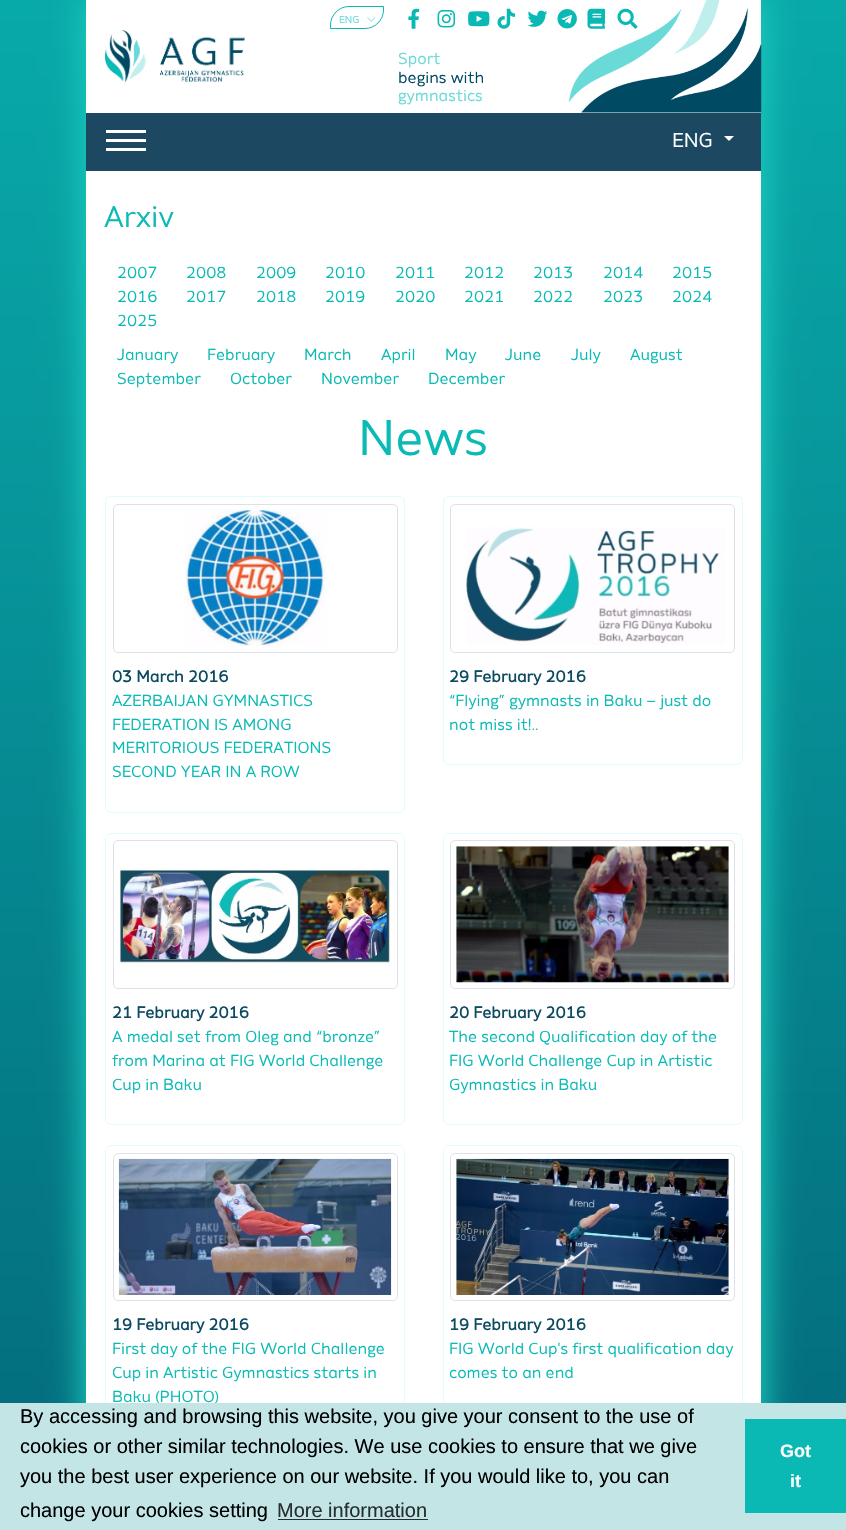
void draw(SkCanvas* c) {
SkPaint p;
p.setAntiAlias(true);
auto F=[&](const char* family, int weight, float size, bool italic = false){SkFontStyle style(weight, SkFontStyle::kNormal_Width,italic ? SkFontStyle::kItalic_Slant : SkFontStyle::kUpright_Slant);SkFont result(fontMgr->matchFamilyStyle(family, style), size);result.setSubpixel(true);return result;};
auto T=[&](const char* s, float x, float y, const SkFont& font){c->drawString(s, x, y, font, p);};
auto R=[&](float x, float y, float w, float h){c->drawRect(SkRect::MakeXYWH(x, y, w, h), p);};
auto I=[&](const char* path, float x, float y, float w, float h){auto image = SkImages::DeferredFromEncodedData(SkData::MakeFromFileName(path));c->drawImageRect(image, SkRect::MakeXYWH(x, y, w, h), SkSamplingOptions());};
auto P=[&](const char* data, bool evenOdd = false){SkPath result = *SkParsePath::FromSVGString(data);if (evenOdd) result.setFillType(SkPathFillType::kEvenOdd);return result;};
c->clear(0xffffffff);
I("1.png",0,0,846,1403);
p.setColor(0xff1bcfc0);
p.setMaskFilter(SkMaskFilter::MakeBlur(kNormal_SkBlurStyle, 15.5));
c->drawRect(SkRect::MakeXYWH(83,-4,682,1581),p);
p.setMaskFilter(nullptr);
p.setColor(0xffffffff);
R(86,0,675,1403);
I("2.png",568,0,194,113);
I("3.png",105,30,140,53);
p.setStroke(true);
p.setStrokeWidth(1);
p.setColor(0xff0ab9b4);
c->drawPath(P("M349 6.5h34.5v3.5c0 10-8.5 18.5-18.5 18.5h-34.5v-3.5c0-10 8.5-18.5 18.5-18.5z"),p);
auto f1 = F("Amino",400,10);
p.setStroke(false);
p.setColor(0xff69dad8);
T("ENG",339,23,f1);
I("4.png",367,17,9,5);
I("5.png",408,8,12,21);
I("6.png",437,10,19,18);
I("7.png",468,11,22,16);
I("8.png",497,8,18,21);
I("9.png",527,10,21,17);
I("10.png",557,9,20,20);
I("11.png",587,8,18,21);
I("12.png",617,8,21,21);
auto f2 = F("Amino",400,16);
T("Sport",398,64,f2);
p.setColor(0xff004a64);
T("begins with",398,83,f2);
p.setColor(0xff69dad8);
T("gymnastics",398,101,f2);
p.setColor(0xff1c4961);
R(86,113,675,58);
p.setColor(0xffffffff);
R(106,139,40,3);
R(106,130,40,3);
R(106,148,40,3);
auto f3 = F("Amino",400,20);
T("ENG",672,147,f3);
c->drawPath(P("M724 136h10l-5 5z"),p);
auto f4 = F("Amino",400,30);
p.setColor(0xff0abab5);
T("Arxiv",104,227,f4);
T("2007",117,278,f2);
T("2008",186,278,f2);
T("2009",256,278,f2);
T("2010",325,278,f2);
T("2011",395,278,f2);
T("2012",464,278,f2);
T("2013",533,278,f2);
T("2014",603,278,f2);
T("2015",672,278,f2);
T("2016",117,302,f2);
T("2017",186,302,f2);
T("2018",256,302,f2);
T("2019",325,302,f2);
T("2020",395,302,f2);
T("2021",464,302,f2);
T("2022",533,302,f2);
T("2023",603,302,f2);
T("2024",672,302,f2);
T("2025",117,326,f2);
T("January",117,360,f2);
T("February",207,360,f2);
T("March",304,360,f2);
T("April",381,360,f2);
T("May",445,360,f2);
T("June",505,360,f2);
T("July",571,360,f2);
T("August",630,360,f2);
T("September",117,384,f2);
T("October",230,384,f2);
T("November",321,384,f2);
T("December",428,384,f2);
auto f5 = F("Amino",400,50);
T("News",358,455,f5);
p.setStroke(true);
p.setColor(0xffdffdff);
c->drawRoundRect(SkRect::MakeXYWH(105.5,496.5,299,316),5.5,5.5,p);
p.setColor(0xffdee2e6);
c->drawRoundRect(SkRect::MakeXYWH(113.5,504.5,284,148),4.5,4.5,p);
I("13.png",184,510,143,136);
auto f6 = F("Amino",700,16);
p.setStroke(false);
p.setColor(0xff0d4b62);
T("03 March 2016",112,682,f6);
p.setColor(0xff0abab5);
T("AZERBAIJAN GYMNASTICS",112,706,f2);
T("FEDERATION IS AMONG",112,730,f2);
T("MERITORIOUS FEDERATIONS",112,753,f2);
T("SECOND YEAR IN A ROW",112,777,f2);
p.setStroke(true);
p.setColor(0xffdffdff);
c->drawRoundRect(SkRect::MakeXYWH(443.5,496.5,299,268),5.5,5.5,p);
p.setColor(0xffdee2e6);
c->drawRoundRect(SkRect::MakeXYWH(450.5,504.5,284,148),4.5,4.5,p);
I("14.png",466,527,259,118);
p.setStroke(false);
p.setColor(0xff0d4b62);
T("29 February 2016",449,682,f6);
p.setColor(0xff0abab5);
T("“Flying” gymnasts in Baku – just do",449,706,f2);
T("not miss it!..",449,730,f2);
p.setStroke(true);
p.setColor(0xffdffdff);
c->drawRoundRect(SkRect::MakeXYWH(105.5,833.5,299,291),5.5,5.5,p);
p.setColor(0xffdee2e6);
c->drawRoundRect(SkRect::MakeXYWH(113.5,840.5,284,148),4.5,4.5,p);
I("15.png",119,868,271,98);
p.setStroke(false);
p.setColor(0xff0d4b62);
T("21 February 2016",112,1018,f6);
p.setColor(0xff0abab5);
T("A medal set from Oleg and “bronze”",112,1042,f2);
T("from Marina at FIG World Challenge",112,1066,f2);
T("Cup in Baku",112,1090,f2);
p.setStroke(true);
p.setColor(0xffdffdff);
c->drawRoundRect(SkRect::MakeXYWH(443.5,833.5,299,291),5.5,5.5,p);
p.setColor(0xffdee2e6);
c->drawRoundRect(SkRect::MakeXYWH(450.5,840.5,284,148),4.5,4.5,p);
I("16.png",456,846,273,137);
p.setStroke(false);
p.setColor(0xff0d4b62);
T("20 February 2016",449,1018,f6);
p.setColor(0xff0abab5);
T("The second Qualification day of the",449,1042,f2);
T("FIG World Challenge Cup in Artistic",449,1066,f2);
T("Gymnastics in Baku",449,1090,f2);
p.setStroke(true);
p.setColor(0xffdffdff);
c->drawRoundRect(SkRect::MakeXYWH(105.5,1145.5,299,292),5.5,5.5,p);
p.setColor(0xffdee2e6);
c->drawRoundRect(SkRect::MakeXYWH(113.5,1153.5,284,147),4.5,4.5,p);
I("17.png",118,1158,274,137);
p.setStroke(false);
p.setColor(0xff0d4b62);
T("19 February 2016",112,1330,f6);
p.setColor(0xff0abab5);
T("First day of the FIG World Challenge",112,1354,f2);
T("Cup in Artistic Gymnastics starts in",112,1378,f2);
T("Baku (PHOTO)",112,1402,f2);
p.setStroke(true);
p.setColor(0xffdffdff);
c->drawRoundRect(SkRect::MakeXYWH(443.5,1145.5,299,267),5.5,5.5,p);
p.setColor(0xffdee2e6);
c->drawRoundRect(SkRect::MakeXYWH(450.5,1153.5,284,147),4.5,4.5,p);
I("18.png",456,1158,273,137);
p.setStroke(false);
p.setColor(0xff0d4b62);
T("19 February 2016",449,1330,f6);
p.setColor(0xff0abab5);
T("FIG World Cup's first qualification day",449,1354,f2);
T("comes to an end",449,1378,f2);
p.setColor(0xffc3e5e6);
R(0,1403,846,127);
auto f7 = F("Liberation Sans",400,20);
p.setColor(0xff000000);
T("By accessing and browsing this website, you give your consent to the use of",20,1423,f7);
T("cookies or other similar technologies. We use cookies to ensure that we give",20,1453,f7);
T("you the best user experience on our website. If you would like to, you can",20,1483,f7);
T("change your cookies setting",20,1517,f7);
p.setColor(0xff272e2e);
T("More information",277,1517,f7);
R(278,1519,150,1);
p.setColor(0xff0ab9b4);
R(745,1419,101,94);
auto f8 = F("Liberation Sans",700,18);
p.setColor(0xffffffff);
T("Got",780,1457,f8);
T("it",790,1487,f8);
}
